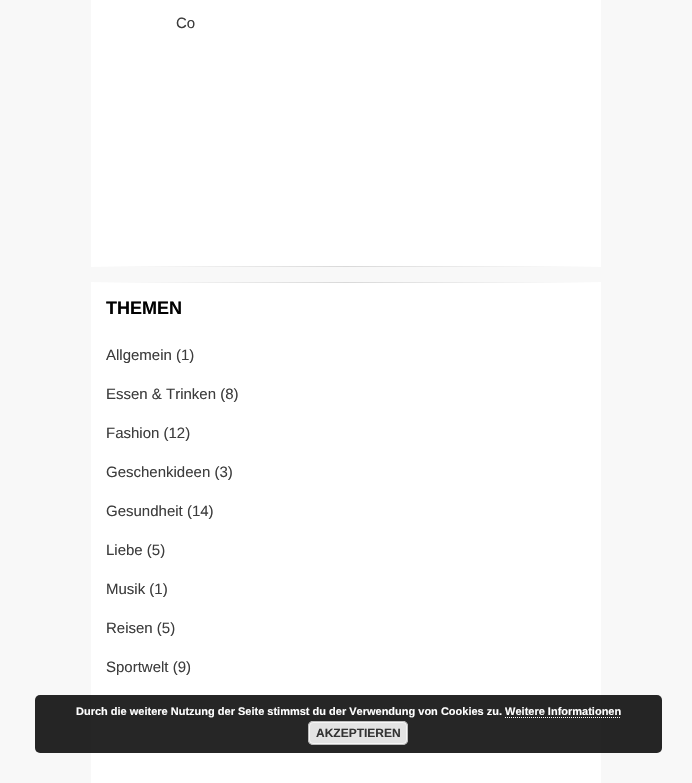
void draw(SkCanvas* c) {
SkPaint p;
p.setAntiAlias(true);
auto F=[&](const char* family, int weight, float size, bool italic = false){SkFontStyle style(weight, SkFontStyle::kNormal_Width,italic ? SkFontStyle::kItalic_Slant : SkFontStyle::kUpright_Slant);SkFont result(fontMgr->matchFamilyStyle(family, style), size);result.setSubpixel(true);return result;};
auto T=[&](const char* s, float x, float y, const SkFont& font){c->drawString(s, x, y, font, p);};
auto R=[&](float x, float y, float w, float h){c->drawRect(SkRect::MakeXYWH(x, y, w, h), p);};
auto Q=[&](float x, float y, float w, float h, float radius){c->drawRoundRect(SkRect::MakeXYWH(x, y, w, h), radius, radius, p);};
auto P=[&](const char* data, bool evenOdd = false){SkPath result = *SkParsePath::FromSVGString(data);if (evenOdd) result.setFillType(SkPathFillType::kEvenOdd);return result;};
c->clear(0xfff8f8f8);
p.setColor(0xffffffff);
R(91,0,510,266);
auto f1 = F("Liberation Sans",400,15);
p.setColor(0xff3d3d3d);
T("Co",176,28,f1);
{
const SkColor colors[] = {0xffffffff,0xffd9d9d9,0xffffffff};
const float stops[] = {0,.5,1};
const SkPoint ends[] = {{91,267}, {601,267}};
p.setShader(SkGradientShader::MakeLinear(ends, colors, stops, 3, SkTileMode::kClamp));
p.setAlpha(255);
}
R(91,266,510,1);
p.setShader(nullptr);
p.setColor(0xffffffff);
R(91,283,510,500);
{
const SkColor colors[] = {0xffffffff,0xffd9d9d9,0xffffffff};
const float stops[] = {0,.5,1};
const SkPoint ends[] = {{91,283}, {601,283}};
p.setShader(SkGradientShader::MakeLinear(ends, colors, stops, 3, SkTileMode::kClamp));
p.setAlpha(255);
}
R(91,282,510,1);
auto f2 = F("Liberation Sans",700,18);
p.setShader(nullptr);
p.setColor(0xff020202);
T("THEMEN",106,314,f2);
p.setColor(0xff3d3d3d);
T("Allgemein (1)",106,360,f1);
T("Essen & Trinken (8)",106,399,f1);
T("Fashion (12)",106,438,f1);
T("Geschenkideen (3)",106,477,f1);
T("Gesundheit (14)",106,516,f1);
T("Liebe (5)",106,555,f1);
T("Musik (1)",106,594,f1);
T("Reisen (5)",106,633,f1);
T("Sportwelt (9)",106,672,f1);
p.setColor(0xd9000000);
Q(35,695,627,58,5);
auto f3 = F("Liberation Sans",700,11);
p.setColor(0xffffffff);
T("Durch die weitere Nutzung der Seite stimmst du der Verwendung von Cookies zu. Weitere Informationen",76,715,f3);
p.setStroke(true);
p.setStrokeWidth(1);
p.setPathEffect(SkDashPathEffect::Make({{1,1}}, 0));
c->drawPath(P("M505 717.5h116"),p);
p.setPathEffect(nullptr);
p.setStroke(false);
p.setColor(0xffe3e3e3);
Q(308,721,100,24,5);
p.setStroke(true);
p.setColor(0xfff6f6f6);
c->drawRoundRect(SkRect::MakeXYWH(309.5,722.5,97,21),3.5,3.5,p);
p.setColor(0xffbbbbbb);
c->drawRoundRect(SkRect::MakeXYWH(308.5,721.5,99,23),4.5,4.5,p);
auto f4 = F("Liberation Sans",700,12);
p.setStroke(false);
p.setColor(0xff333333);
T("AKZEPTIEREN",316,737,f4);
}
